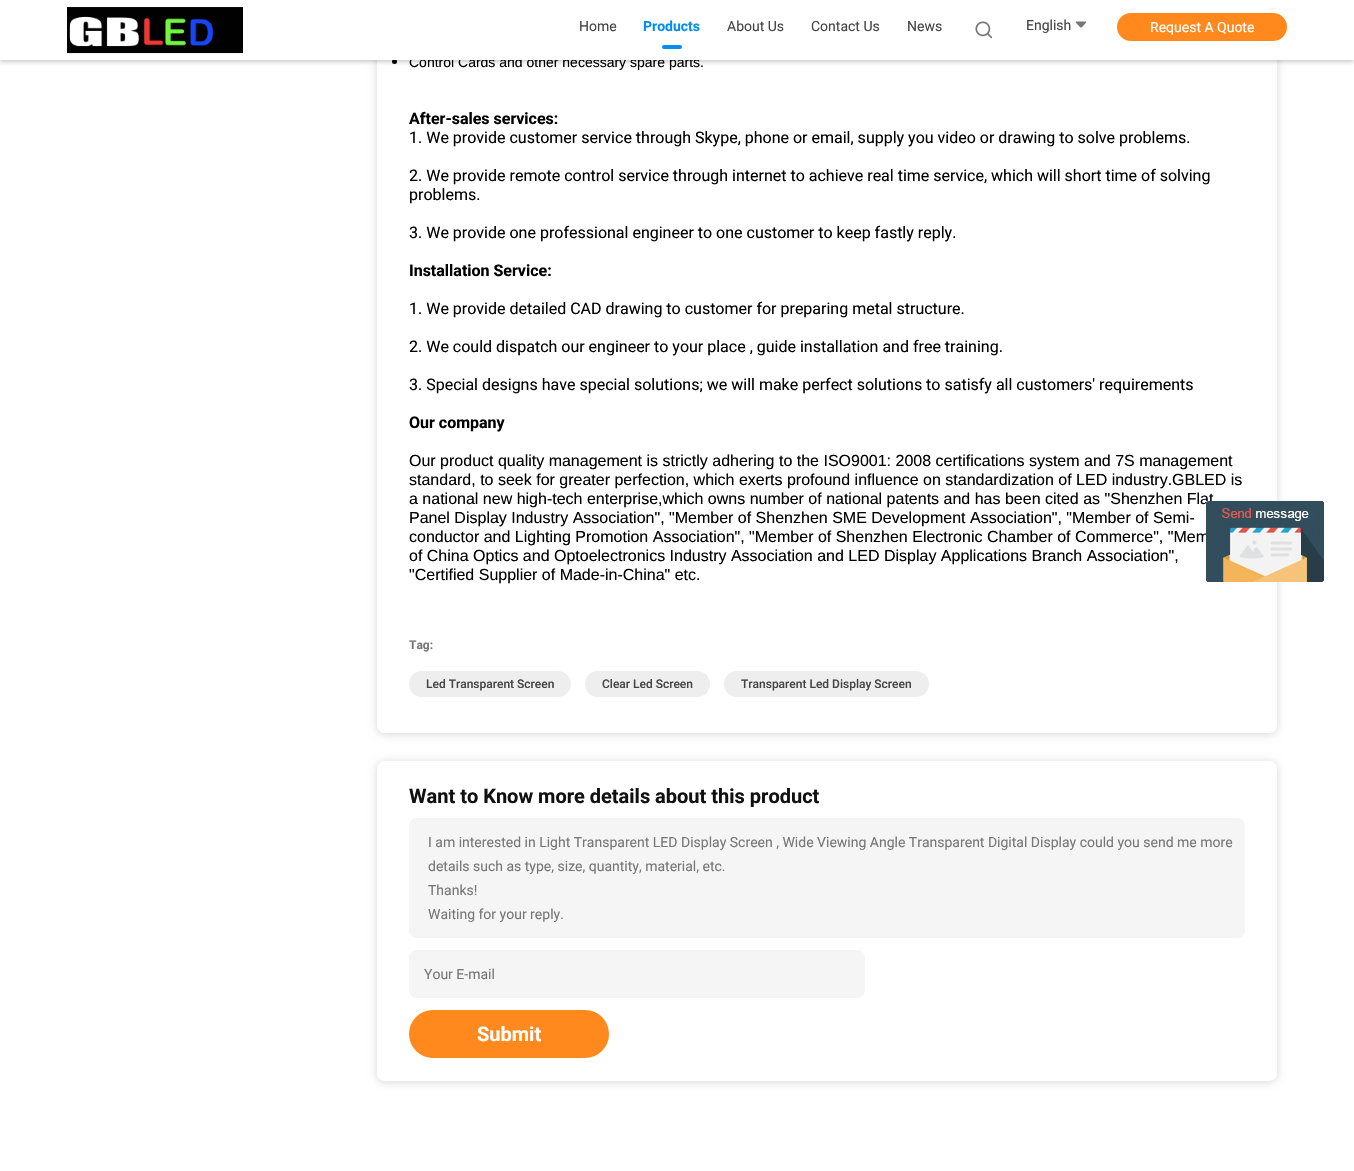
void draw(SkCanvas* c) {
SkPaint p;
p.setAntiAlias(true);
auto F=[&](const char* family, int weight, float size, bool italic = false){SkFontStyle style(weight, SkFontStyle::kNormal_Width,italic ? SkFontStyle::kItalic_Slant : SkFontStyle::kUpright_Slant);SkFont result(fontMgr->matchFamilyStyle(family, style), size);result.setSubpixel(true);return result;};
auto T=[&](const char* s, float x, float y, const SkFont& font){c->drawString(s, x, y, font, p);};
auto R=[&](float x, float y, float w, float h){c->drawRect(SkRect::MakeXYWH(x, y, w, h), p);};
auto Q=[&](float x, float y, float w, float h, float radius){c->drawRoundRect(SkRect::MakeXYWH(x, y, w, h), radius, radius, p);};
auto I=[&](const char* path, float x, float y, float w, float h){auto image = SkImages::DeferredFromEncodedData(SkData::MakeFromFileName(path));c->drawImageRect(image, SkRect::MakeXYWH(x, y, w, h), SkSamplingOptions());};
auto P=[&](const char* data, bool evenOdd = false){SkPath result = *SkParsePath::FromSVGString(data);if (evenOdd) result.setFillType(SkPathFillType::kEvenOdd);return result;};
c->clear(0xffffffff);
c->save();
c->clipPath(P("M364 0h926v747h-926zm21-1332h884c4.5 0 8 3.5 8 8v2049c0 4.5-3.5 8-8 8h-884c-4.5 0-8-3.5-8-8v-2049c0-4.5 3.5-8 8-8z",true),true);
p.setColor(0x29000000);
p.setMaskFilter(SkMaskFilter::MakeBlur(kNormal_SkBlurStyle, 4));
c->drawRoundRect(SkRect::MakeXYWH(377,-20,900,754),8,8,p);
p.setMaskFilter(nullptr);
c->restore();
p.setColor(0xff000000);
c->drawCircle(394.5,61.5,2.5,p);
p.setColor(0x33000000);
p.setMaskFilter(SkMaskFilter::MakeBlur(kNormal_SkBlurStyle, 2));
c->drawRect(SkRect::MakeXYWH(0,2,1354,60),p);
p.setMaskFilter(nullptr);
auto f1 = F("Liberation Sans",400,14);
p.setColor(0xff000000);
T("Control Cards and other necessary spare parts.",409,67,f1);
p.setColor(0xffffffff);
R(0,0,1354,60);
I("1.png",67,7,176,47);
auto f2 = F("Roboto",400,14);
p.setColor(0xff444444);
T("Home",579,31,f2);
auto f3 = F("Roboto",700,14);
p.setColor(0xff008ef6);
T("Products",643,31,f3);
Q(662,45,20,4,2);
p.setColor(0xff444444);
T("About Us",727,31,f2);
T("Contact Us",811,31,f2);
T("News",907,31,f2);
I("2.png",975,21,18,18);
T("English",1026,30,f2);
I("3.png",1075,21,12,7);
p.setColor(0xffff891c);
Q(1117,13,170,28,14);
p.setColor(0xffffffff);
T("Request A Quote",1150,32,f2);
auto f4 = F("Roboto",700,16);
p.setColor(0xff000000);
T("After-sales services:",409,124,f4);
auto f5 = F("Roboto",400,16);
T("1. We provide customer service through Skype, phone or email, supply you video or drawing to solve problems.",409,143,f5);
T("2. We provide remote control service through internet to achieve real time service, which will short time of solving",409,181,f5);
T("problems.",409,200,f5);
T("3. We provide one professional engineer to one customer to keep fastly reply.",409,238,f5);
T("Installation Service:",409,276,f4);
T("1. We provide detailed CAD drawing to customer for preparing metal structure.",409,314,f5);
T("2. We could dispatch our engineer to your place , guide installation and free training.",409,352,f5);
T("3. Special designs have special solutions; we will make perfect solutions to satisfy all customers' requirements",409,390,f5);
T("Our company",409,428,f4);
auto f6 = F("Liberation Sans",400,16);
T("Our product quality management is strictly adhering to the ISO9001: 2008 certifications system and 7S management",409,466,f6);
T("standard, to seek for greater perfection, which exerts profound influence on standardization of LED industry.GBLED is",409,485,f6);
T("a national new high-tech enterprise,which owns number of national patents and has been cited as \"Shenzhen Flat",409,504,f6);
T("Panel Display Industry Association\", \"Member of Shenzhen SME Development Association\", \"Member of Semi-",409,523,f6);
T("conductor and Lighting Promotion Association\", \"Member of Shenzhen Electronic Chamber of Commerce\", \"Mem",409,542,f6);
T("of China Optics and Optoelectronics Industry Association and LED Display Applications Branch Association\",",409,561,f6);
T("\"Certified Supplier of Made-in-China\" etc.",409,580,f6);
auto f7 = F("Roboto",700,12);
p.setColor(0xff777777);
T("Tag:",409,649,f7);
p.setColor(0xffeeeeee);
Q(409,671,162,26,13);
auto f8 = F("Roboto",500,12);
p.setColor(0xff444444);
T("Led Transparent Screen",426,688,f8);
p.setColor(0xffeeeeee);
Q(585,671,125,26,13);
p.setColor(0xff444444);
T("Clear Led Screen",602,688,f8);
p.setColor(0xffeeeeee);
Q(724,671,205,26,13);
p.setColor(0xff444444);
T("Transparent Led Display Screen",741,688,f8);
c->save();
c->clipPath(P("M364 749h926v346h-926zm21 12h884c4.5 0 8 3.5 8 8v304c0 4.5-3.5 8-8 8h-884c-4.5 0-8-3.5-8-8v-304c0-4.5 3.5-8 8-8z",true),true);
p.setColor(0x29000000);
p.setMaskFilter(SkMaskFilter::MakeBlur(kNormal_SkBlurStyle, 4));
c->drawRoundRect(SkRect::MakeXYWH(377,762,900,320),8,8,p);
p.setMaskFilter(nullptr);
c->restore();
auto f9 = F("Roboto",700,20);
p.setColor(0xff111111);
T("Want to Know more details about this product",409,803,f9);
p.setColor(0xfff5f5f5);
Q(409,818,836,120,8);
p.setColor(0xff777777);
T("I am interested in Light Transparent LED Display Screen , Wide Viewing Angle Transparent Digital Display could you send me more",428,847,f2);
T("details such as type, size, quantity, material, etc.",428,871,f2);
T("Thanks!",428,895,f2);
T("Waiting for your reply.",428,919,f2);
p.setColor(0xfff5f5f5);
Q(409,950,456,48,8);
p.setColor(0xff777777);
T("Your E-mail",424,979,f2);
p.setColor(0xffff891c);
Q(409,1010,200,48,24);
p.setColor(0xffffffff);
T("Submit",477,1041,f9);
I("4.png",1206,501,118,81);
}
